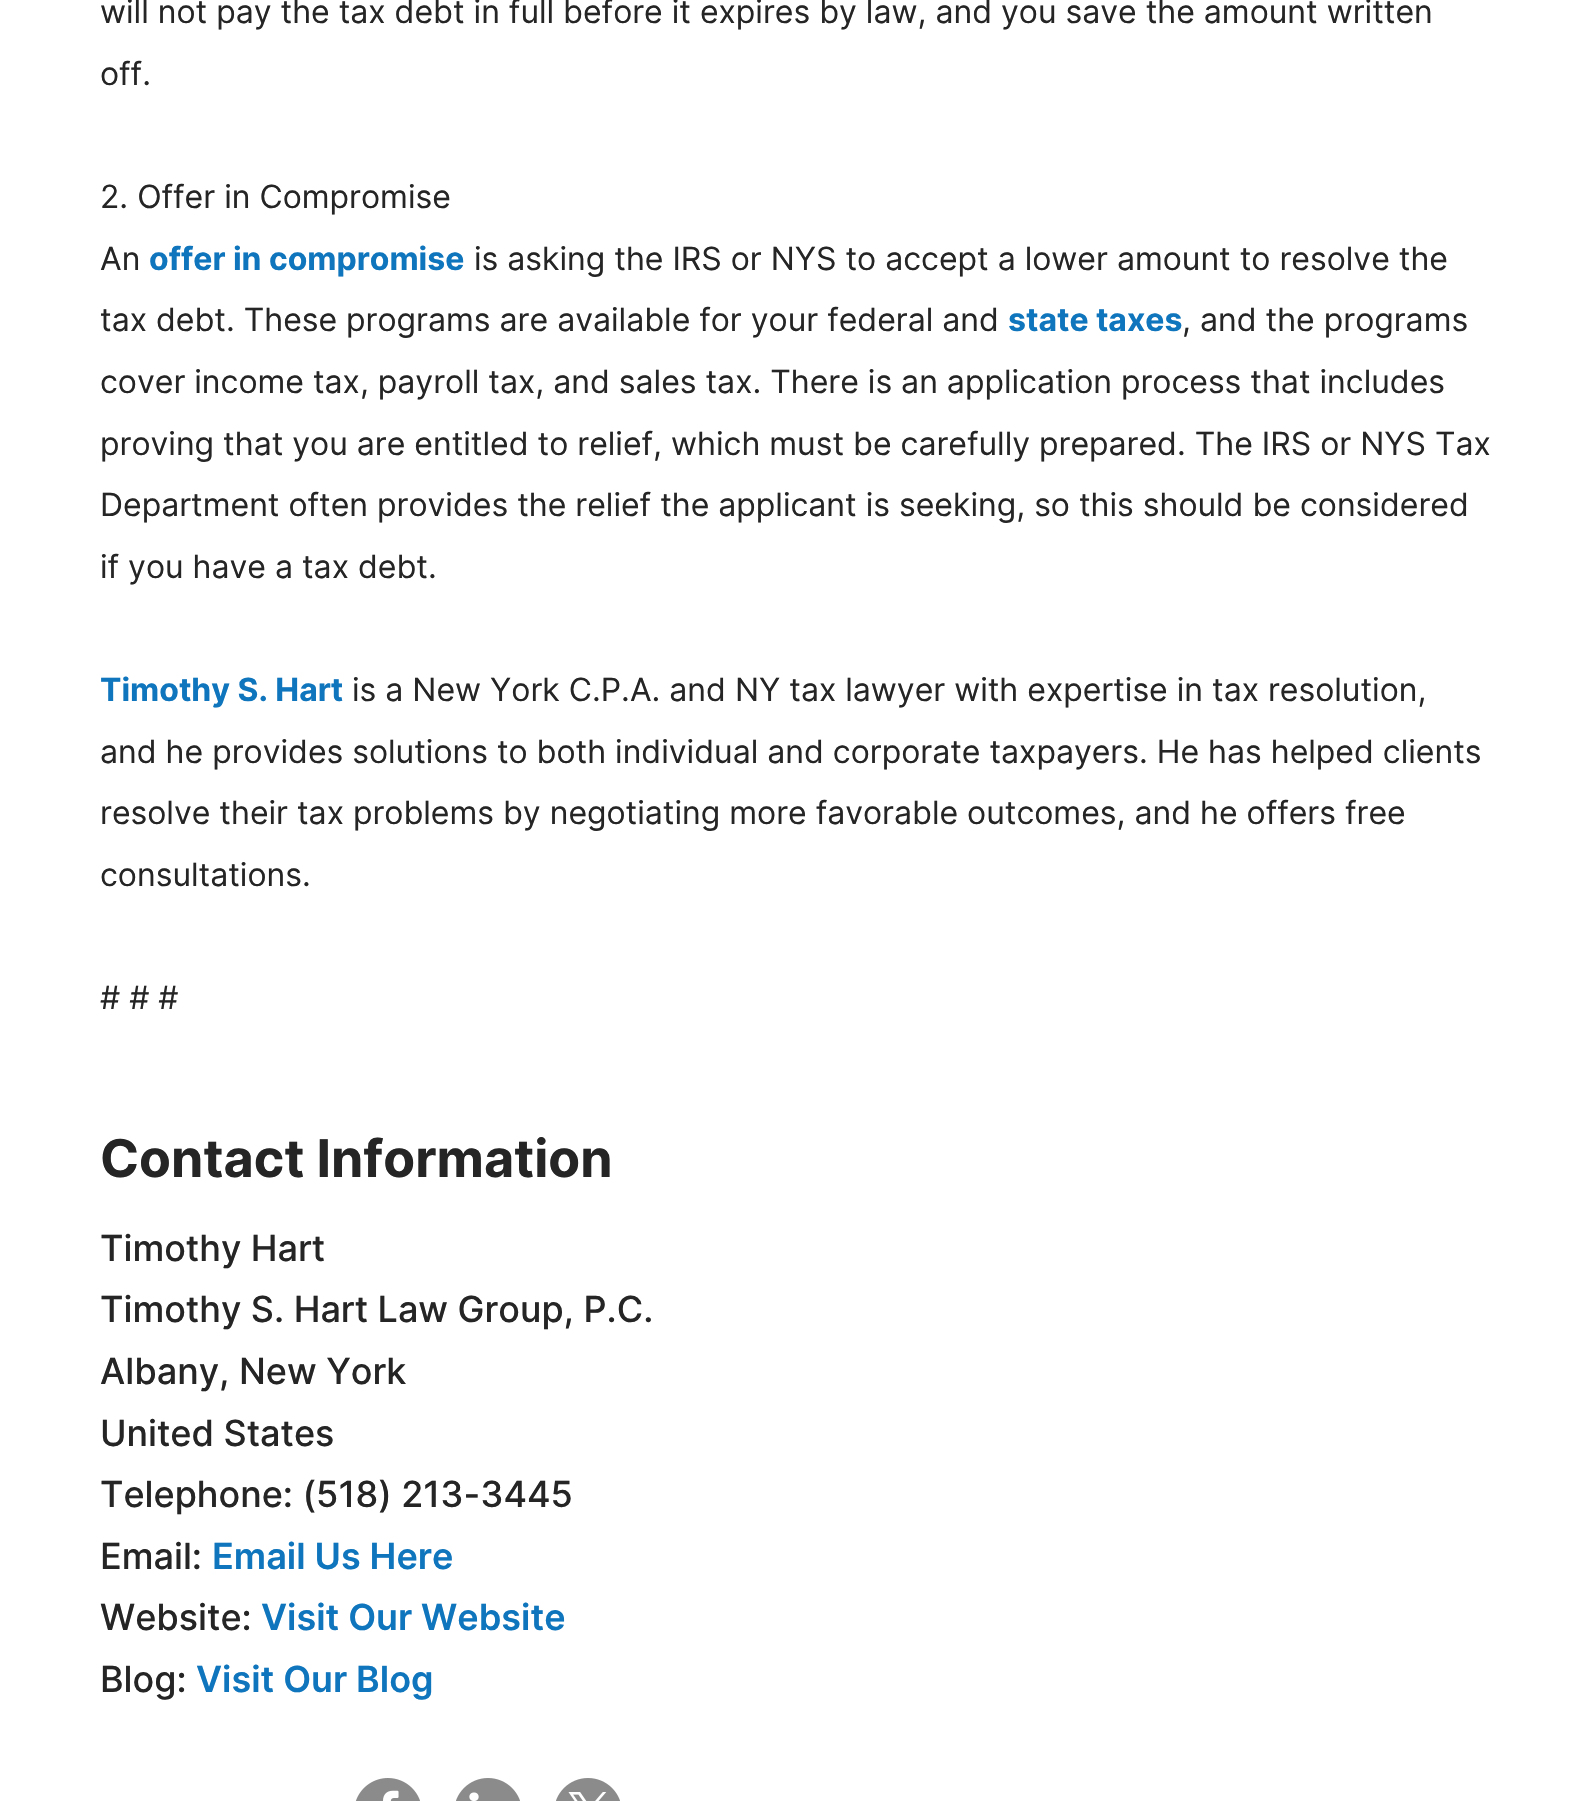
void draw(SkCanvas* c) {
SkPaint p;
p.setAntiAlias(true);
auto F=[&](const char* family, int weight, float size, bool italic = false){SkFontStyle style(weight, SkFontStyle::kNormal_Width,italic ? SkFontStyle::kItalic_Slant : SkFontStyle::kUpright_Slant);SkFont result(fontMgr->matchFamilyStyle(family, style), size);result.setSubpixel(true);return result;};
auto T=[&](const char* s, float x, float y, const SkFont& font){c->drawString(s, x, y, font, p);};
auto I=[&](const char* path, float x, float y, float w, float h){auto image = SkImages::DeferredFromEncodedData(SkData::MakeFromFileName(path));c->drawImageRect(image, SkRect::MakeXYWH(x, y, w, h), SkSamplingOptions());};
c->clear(0xffffffff);
auto f1 = F("Inter",400,32);
p.setColor(0xff252525);
T("will not pay the tax debt in full before it expires by law, and you save the amount written",100,23,f1);
T("off.",100,85,f1);
T("2. Offer in Compromise",100,208,f1);
T("An",100,270,f1);
auto f2 = F("Inter",700,32);
p.setColor(0xff0f75bc);
T("offer in compromise",149,270,f2);
p.setColor(0xff252525);
T("is asking the IRS or NYS to accept a lower amount to resolve the",474,270,f1);
T("tax debt. These programs are available for your federal and",100,331,f1);
p.setColor(0xff0f75bc);
T("state taxes",1008,331,f2);
p.setColor(0xff252525);
T(", and the programs",1182,331,f1);
T("cover income tax, payroll tax, and sales tax. There is an application process that includes",100,393,f1);
T("proving that you are entitled to relief, which must be carefully prepared. The IRS or NYS Tax",100,455,f1);
T("Department often provides the relief the applicant is seeking, so this should be considered",100,516,f1);
T("if you have a tax debt.",100,578,f1);
p.setColor(0xff0f75bc);
T("Timothy S. Hart",100,701,f2);
p.setColor(0xff252525);
T("is a New York C.P.A. and NY tax lawyer with expertise in tax resolution,",352,701,f1);
T("and he provides solutions to both individual and corporate taxpayers. He has helped clients",100,763,f1);
T("resolve their tax problems by negotiating more favorable outcomes, and he offers free",100,824,f1);
T("consultations.",100,886,f1);
T("# # #",100,1009,f1);
auto f3 = F("Inter",700,52);
T("Contact Information",100,1177,f3);
auto f4 = F("Inter",500,36);
T("Timothy Hart",100,1261,f4);
T("Timothy S. Hart Law Group, P.C.",100,1322,f4);
T("Albany, New York",100,1384,f4);
T("United States",100,1446,f4);
T("Telephone: (518) 213-3445",100,1507,f4);
T("Email:",100,1569,f4);
auto f5 = F("Inter",600,36);
p.setColor(0xff0f75bc);
T("Email Us Here",212,1569,f5);
p.setColor(0xff252525);
T("Website:",100,1630,f4);
p.setColor(0xff0f75bc);
T("Visit Our Website",261,1630,f5);
p.setColor(0xff252525);
T("Blog:",100,1692,f4);
p.setColor(0xff0f75bc);
T("Visit Our Blog",196,1692,f5);
I("1.png",355,1778,65,23);
I("2.png",456,1778,64,23);
I("3.png",556,1778,64,23);
}
